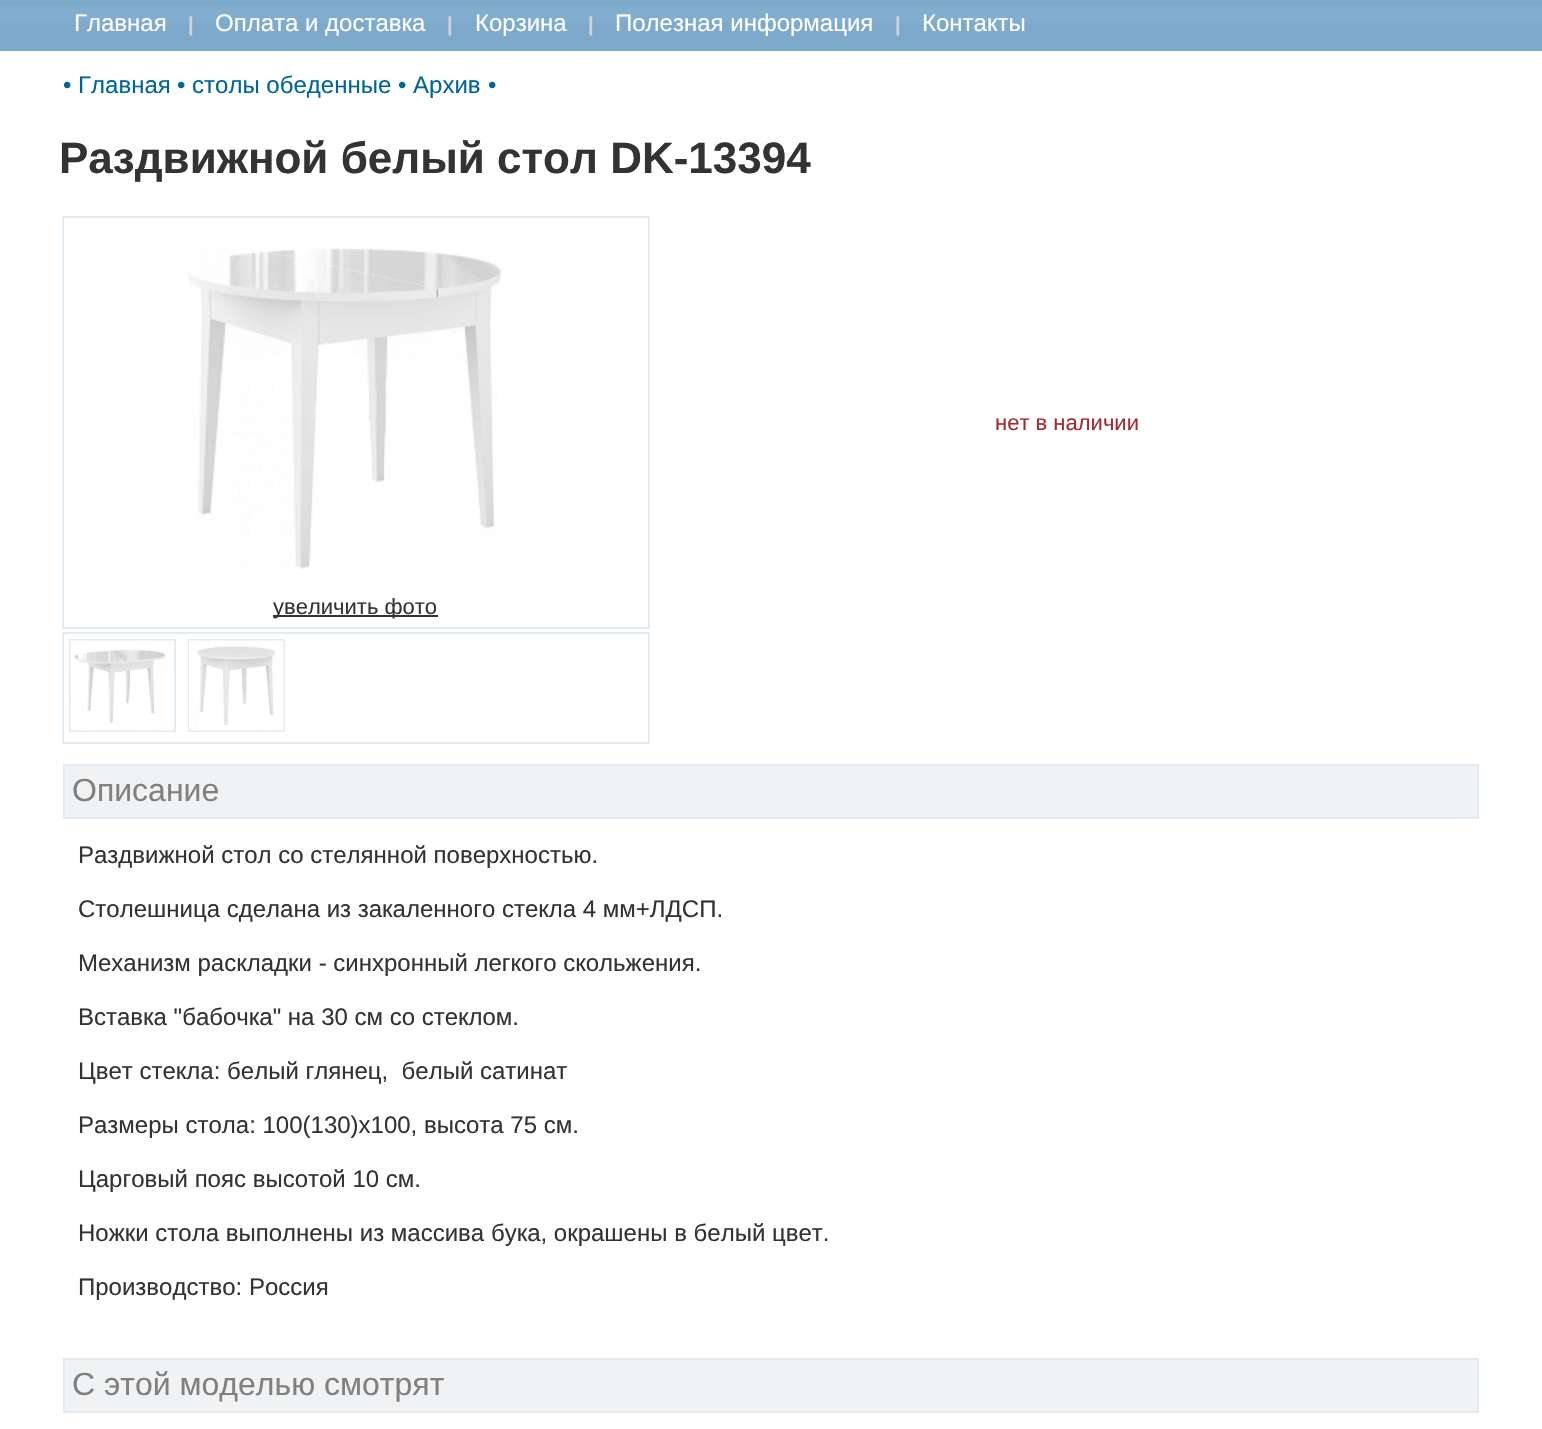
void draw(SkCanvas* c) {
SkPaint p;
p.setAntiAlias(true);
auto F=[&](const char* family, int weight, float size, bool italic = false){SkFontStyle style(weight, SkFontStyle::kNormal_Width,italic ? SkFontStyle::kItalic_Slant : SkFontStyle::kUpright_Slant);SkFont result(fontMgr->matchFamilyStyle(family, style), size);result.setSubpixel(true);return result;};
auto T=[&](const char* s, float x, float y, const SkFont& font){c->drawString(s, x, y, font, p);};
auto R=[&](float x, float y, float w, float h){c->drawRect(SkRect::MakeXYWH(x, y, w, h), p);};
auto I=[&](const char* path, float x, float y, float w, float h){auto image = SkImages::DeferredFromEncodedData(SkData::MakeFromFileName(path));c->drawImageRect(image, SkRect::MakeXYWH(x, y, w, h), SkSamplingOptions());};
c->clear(0xffffffff);
I("1.png",0,0,57,51);
I("2.png",57,0,1428,51);
auto f1 = F("Liberation Sans",400,24);
p.setColor(0xffffffff);
T("Главная",74,31,f1);
auto f2 = F("Liberation Sans",700,20);
p.setColor(0xffd3d3d3);
T("|",188,31,f2);
p.setColor(0xffffffff);
T("Оплата и доставка",215,31,f1);
p.setColor(0xffd3d3d3);
T("|",447,31,f2);
p.setColor(0xffffffff);
T("Корзина",475,31,f1);
p.setColor(0xffd3d3d3);
T("|",588,31,f2);
p.setColor(0xffffffff);
T("Полезная информация",615,31,f1);
p.setColor(0xffd3d3d3);
T("|",895,31,f2);
p.setColor(0xffffffff);
T("Контакты",922,31,f1);
I("3.png",1485,0,57,51);
p.setColor(0xff006699);
T("• Главная",63,93,f1);
T("• столы обеденные",177,93,f1);
T("• Архив",398,93,f1);
T("•",488,93,f1);
auto f3 = F("Liberation Sans",700,44);
p.setColor(0xff333333);
T("Раздвижной белый стол DK-13394",59,173,f3);
auto f4 = F("Liberation Sans",400,22);
p.setColor(0xffa52a2a);
T("нет в наличии",995,430,f4);
p.setStroke(true);
p.setStrokeWidth(2);
p.setColor(0xffe3ebf2);
c->drawRect(SkRect::MakeXYWH(63,217,586,411),p);
I("4.png",188,248,314,321);
p.setStroke(false);
p.setColor(0xff333333);
R(273,615,165,2);
T("увеличить фото",273,614,f4);
p.setStroke(true);
p.setColor(0xffe3ebf2);
c->drawRect(SkRect::MakeXYWH(63,633,586,110),p);
c->drawRect(SkRect::MakeXYWH(70,640,105,91),p);
c->drawRect(SkRect::MakeXYWH(189,640,95,91),p);
I("5.png",70,640,104,91);
I("6.png",189,640,95,91);
p.setStroke(false);
p.setColor(0xfff1f2f3);
c->drawRect(SkRect::MakeXYWH(64,765,1414,53),p);
p.setStroke(true);
p.setColor(0xffe3ebf2);
c->drawRect(SkRect::MakeXYWH(64,765,1414,53),p);
auto f5 = F("Liberation Sans",400,32);
p.setStroke(false);
p.setColor(0xff808080);
T("Описание",72,801,f5);
p.setColor(0xff333333);
T("Раздвижной стол со стелянной поверхностью.",78,863,f1);
T("Столешница сделана из закаленного стекла 4 мм+ЛДСП.",78,917,f1);
T("Механизм раскладки - синхронный легкого скольжения.",78,971,f1);
T("Вставка \"бабочка\" на 30 см со стеклом.",78,1025,f1);
T("Цвет стекла: белый глянец,  белый сатинат",78,1079,f1);
T("Размеры стола: 100(130)х100, высота 75 см.",78,1133,f1);
T("Царговый пояс высотой 10 см.",78,1187,f1);
T("Ножки стола выполнены из массива бука, окрашены в белый цвет.",78,1241,f1);
T("Производство: Россия",78,1295,f1);
p.setColor(0xfff1f2f3);
c->drawRect(SkRect::MakeXYWH(64,1359,1414,53),p);
p.setStroke(true);
p.setColor(0xffe3ebf2);
c->drawRect(SkRect::MakeXYWH(64,1359,1414,53),p);
p.setStroke(false);
p.setColor(0xff808080);
T("С этой моделью смотрят",72,1395,f5);
}
